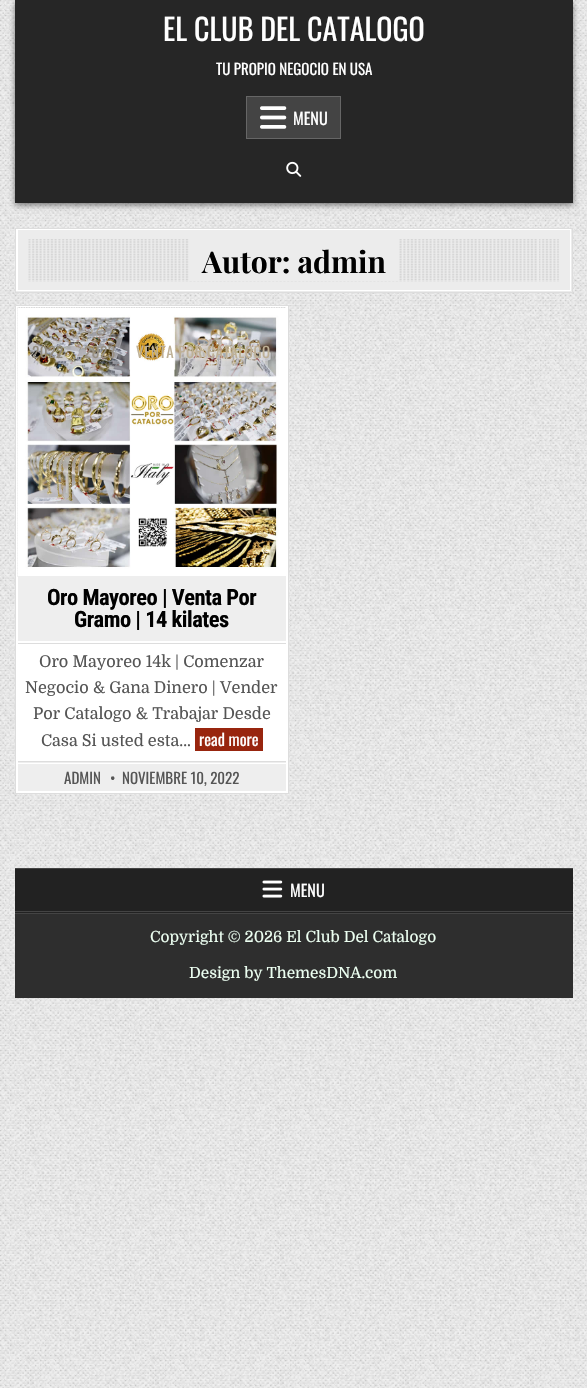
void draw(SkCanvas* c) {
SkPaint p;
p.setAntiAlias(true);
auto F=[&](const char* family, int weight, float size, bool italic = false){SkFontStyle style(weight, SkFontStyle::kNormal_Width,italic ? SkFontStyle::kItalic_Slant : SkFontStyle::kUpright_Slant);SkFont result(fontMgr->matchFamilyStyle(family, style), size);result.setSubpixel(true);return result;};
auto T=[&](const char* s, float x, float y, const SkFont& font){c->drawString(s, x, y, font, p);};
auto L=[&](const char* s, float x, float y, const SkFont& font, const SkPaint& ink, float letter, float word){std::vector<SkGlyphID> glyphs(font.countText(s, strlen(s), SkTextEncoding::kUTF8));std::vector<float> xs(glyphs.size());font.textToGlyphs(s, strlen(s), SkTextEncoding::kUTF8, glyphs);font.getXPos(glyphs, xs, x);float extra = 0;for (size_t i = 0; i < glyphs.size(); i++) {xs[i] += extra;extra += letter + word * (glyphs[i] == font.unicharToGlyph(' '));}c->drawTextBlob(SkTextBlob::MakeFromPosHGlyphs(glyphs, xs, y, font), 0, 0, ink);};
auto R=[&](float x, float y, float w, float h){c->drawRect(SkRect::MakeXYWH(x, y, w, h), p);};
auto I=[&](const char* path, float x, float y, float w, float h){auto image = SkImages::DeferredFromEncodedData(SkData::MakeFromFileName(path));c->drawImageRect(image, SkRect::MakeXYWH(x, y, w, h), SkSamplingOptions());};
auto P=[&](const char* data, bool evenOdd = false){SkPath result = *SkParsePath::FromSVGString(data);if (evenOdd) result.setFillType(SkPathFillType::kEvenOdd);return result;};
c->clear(0xffffffff);
I("1.png",0,0,587,1388);
p.setColor(0x80000000);
p.setMaskFilter(SkMaskFilter::MakeBlur(kNormal_SkBlurStyle, 3));
c->drawRect(SkRect::MakeXYWH(15,3,558,202),p);
p.setMaskFilter(nullptr);
p.setColor(0xff262626);
R(15,0,558,203);
auto f1 = F("Oswald",400,30);
p.setColor(0xffffffff);
T("EL CLUB DEL CATALOGO",163,41,f1);
auto f2 = F("Oswald",400,15);
T("TU PROPIO NEGOCIO EN USA",216,75,f2);
p.setColor(0xff444444);
c->drawRect(SkRect::MakeXYWH(246.5,96.5,94,42),p);
p.setStroke(true);
p.setStrokeWidth(1);
p.setColor(0xff666666);
c->drawRect(SkRect::MakeXYWH(246.5,96.5,94,42),p);
I("2.png",260,106,27,23);
auto f3 = F("Oswald",400,16.25);
p.setStroke(false);
p.setColor(0xffffffff);
T("MENU",293,125,f3);
I("3.png",286,161,16,16);
p.setColor(0xffececec);
R(16,229,556,63);
c->save();
c->clipRect(SkRect::MakeXYWH(16,229,555,62));
p.setColor(0xffffffff);
c->drawPath(P("M-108 105h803v310h-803zm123 123h555v62h-555z",true),p);
c->drawPath(P("M-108 105h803v310h-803zm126 125h554v62h-554z",true),p);
c->restore();
p.setStroke(true);
p.setColor(0xffdddddd);
c->drawRect(SkRect::MakeXYWH(15.5,228.5,557,64),p);
I("4.png",28,239,531,43);
p.setStroke(false);
p.setColor(0xffececec);
R(189,239,210,42);
auto f4 = F("Playfair Display",700,30);
p.setColor(0xff000000);
T("Autor: admin",202,273,f4);
p.setColor(0xffffffff);
c->drawRect(SkRect::MakeXYWH(15.5,305.5,273,488),p);
p.setStroke(true);
p.setColor(0xffdddddd);
c->drawRect(SkRect::MakeXYWH(15.5,305.5,273,488),p);
I("5.png",17,307,269,270);
I("6.png",17,307,269,270);
p.setStroke(false);
p.setColor(0xff918a7c);
L("2022",32,358,f2,p,.6,0);
p.setColor(0xff989083);
L("2023",84,358,f2,p,.6,0);
p.setColor(0xffbeb096);
L("VENTA POR CATALOGO",136,358,f2,p,.6,0);
p.setColor(0xffeeeeee);
R(18,576,268,65);
auto f5 = F("Roboto Condensed",700,22.5);
p.setColor(0xff000000);
L("Oro Mayoreo | Venta Por",47,605,f5,p,-.5,0);
L("Gramo | 14 kilates",74,627,f5,p,-.5,0);
p.setColor(0xffdddddd);
R(18,643,268,1);
auto f6 = F("Domine",400,16.25);
p.setColor(0xff555555);
T("Oro Mayoreo 14k | Comenzar",39,667,f6);
T("Negocio & Gana Dinero | Vender",25,693,f6);
T("Por Catalogo & Trabajar Desde",33,719,f6);
T("Casa Si usted esta…",41,746,f6);
p.setColor(0xff98250e);
R(195,728,68,23);
p.setColor(0xffffffff);
T("read more",199,746,f3);
p.setColor(0xffeeeeee);
R(18,762,268,29);
p.setColor(0xffdddddd);
R(18,761,268,1);
p.setColor(0xffffffff);
R(18,763,268,1);
p.setColor(0xff555555);
T("ADMIN",64,784,f2);
T("•",110,784,f2);
T("NOVIEMBRE 10, 2022",122,784,f2);
p.setColor(0xff222222);
R(15,869,558,44);
p.setColor(0xff444444);
R(15,868,558,1);
R(15,911,558,1);
I("7.png",262,880,21,18);
p.setColor(0xffffffff);
T("MENU",290,897,f3);
p.setColor(0xff2e2e2e);
R(15,914,558,84);
p.setColor(0xff444444);
R(15,913,558,1);
auto f7 = F("Domine",400,15.4);
p.setColor(0xffecfff1);
T("Copyright © 2026 El Club Del Catalogo",150,942,f7);
T("Design by ThemesDNA.com",189,978,f7);
}
